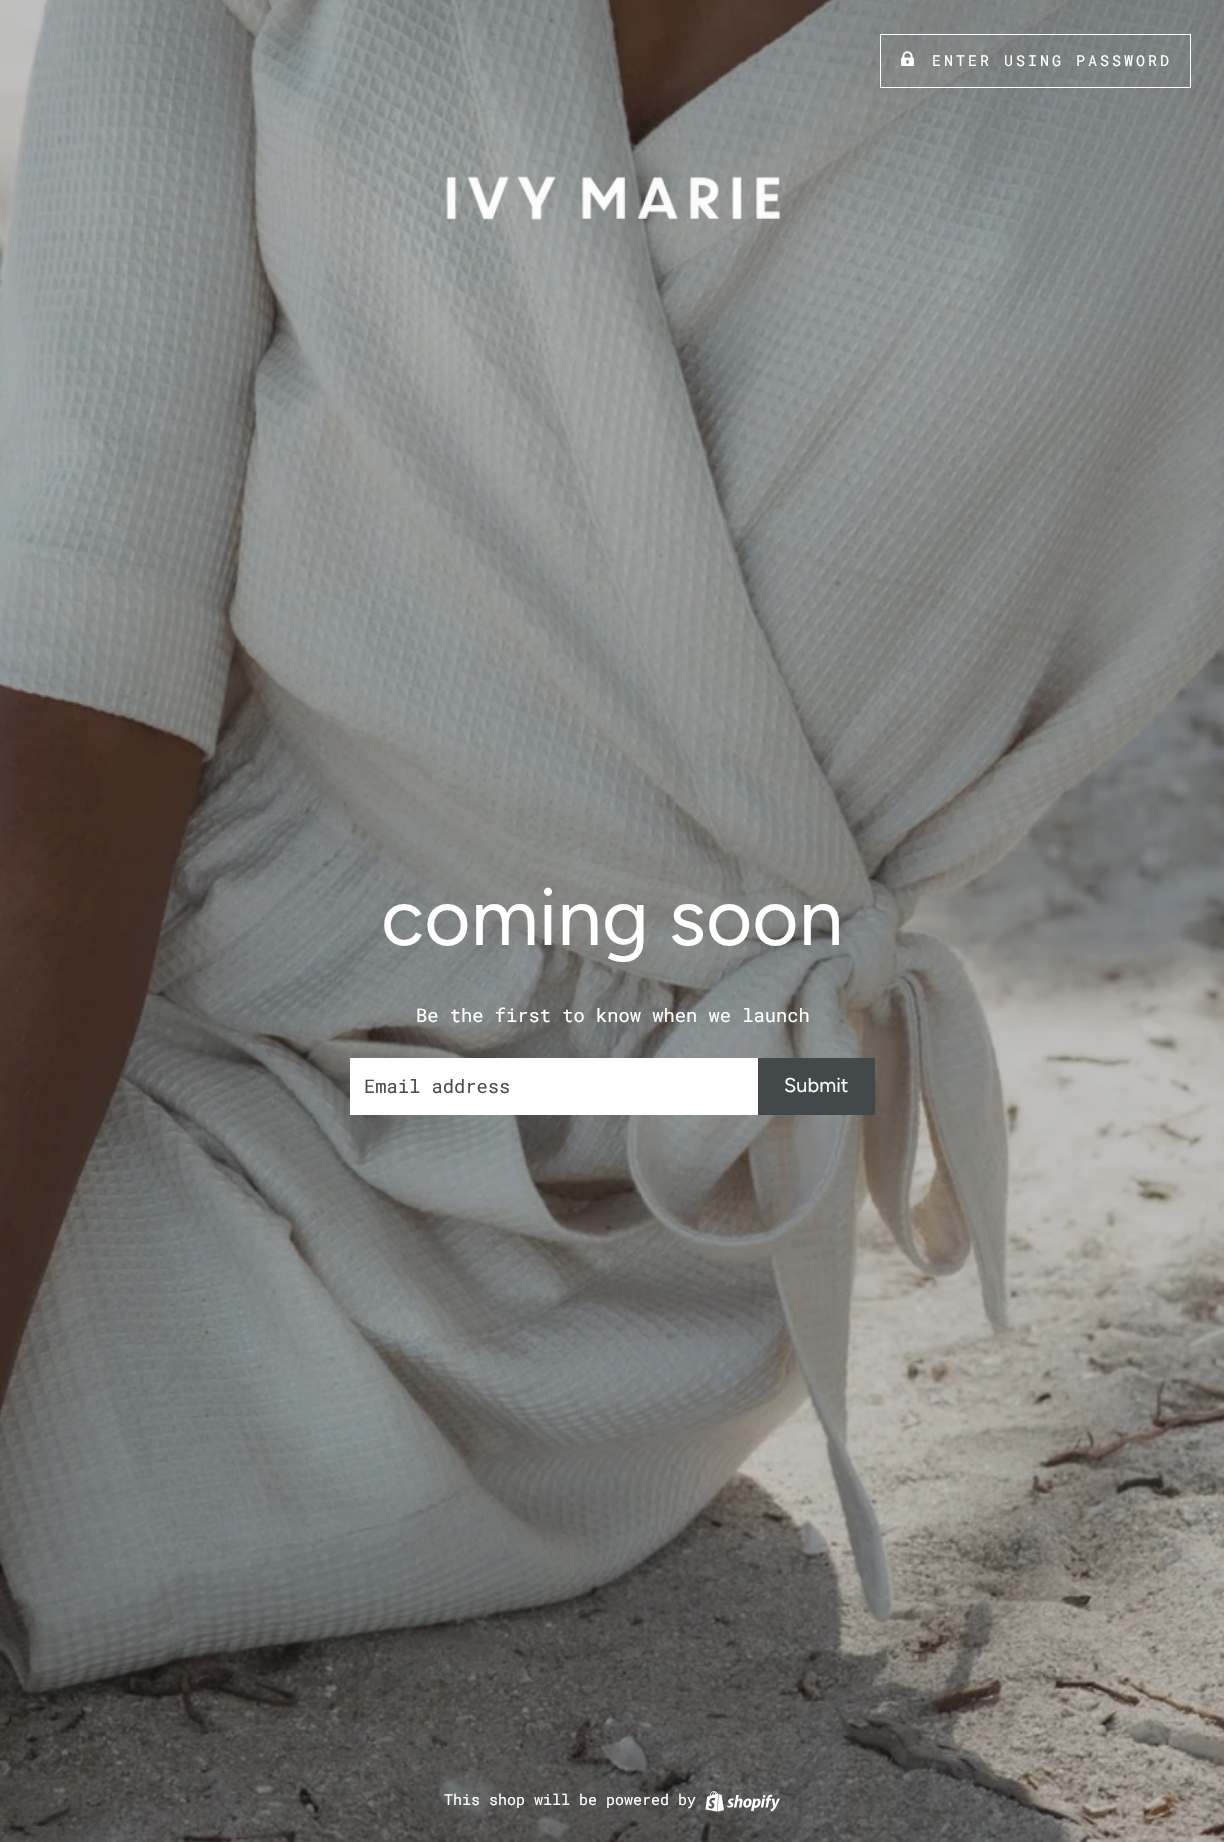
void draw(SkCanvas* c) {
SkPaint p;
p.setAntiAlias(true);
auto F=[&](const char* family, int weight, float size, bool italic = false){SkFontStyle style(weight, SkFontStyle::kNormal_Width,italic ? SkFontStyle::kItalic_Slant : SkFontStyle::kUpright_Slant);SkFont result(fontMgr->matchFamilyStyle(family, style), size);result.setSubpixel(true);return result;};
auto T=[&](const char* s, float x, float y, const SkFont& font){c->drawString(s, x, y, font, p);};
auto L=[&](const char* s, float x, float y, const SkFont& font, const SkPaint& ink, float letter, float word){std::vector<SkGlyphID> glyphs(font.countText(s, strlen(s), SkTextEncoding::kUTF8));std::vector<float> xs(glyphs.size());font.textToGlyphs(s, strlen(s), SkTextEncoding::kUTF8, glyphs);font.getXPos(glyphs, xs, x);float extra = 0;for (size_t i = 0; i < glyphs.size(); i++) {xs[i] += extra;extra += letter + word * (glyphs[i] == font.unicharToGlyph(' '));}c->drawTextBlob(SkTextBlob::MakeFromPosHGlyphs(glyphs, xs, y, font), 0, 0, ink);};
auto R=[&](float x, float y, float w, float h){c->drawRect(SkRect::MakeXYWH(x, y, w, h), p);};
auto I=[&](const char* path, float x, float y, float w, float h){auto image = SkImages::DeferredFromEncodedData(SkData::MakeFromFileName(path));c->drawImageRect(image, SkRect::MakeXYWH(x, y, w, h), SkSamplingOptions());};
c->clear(0xffffffff);
I("1.png",0,0,1224,1842);
p.setStroke(true);
p.setStrokeWidth(1);
p.setColor(0xffffffff);
c->drawRect(SkRect::MakeXYWH(880.5,34.5,310,53),p);
I("2.png",901,51,13,15);
auto f1 = F("Roboto Mono",400,15);
p.setStroke(false);
L("ENTER USING PASSWORD",932,66,f1,p,3,0);
I("3.png",446,176,334,44);
auto f2 = F("Figtree",400,80);
T("coming soon",381,945,f2);
auto f3 = F("Roboto Mono",400,18.75);
T("Be the first to know when we launch",416,1022,f3);
R(350,1058,408,57);
p.setColor(0xff4d4d4d);
T("Email address",364,1093,f3);
p.setColor(0xff43494b);
R(758,1058,117,57);
auto f4 = F("Figtree",400,20);
p.setColor(0xfff7f7f7);
T("Submit",784,1092,f4);
p.setColor(0xffffffff);
T("This shop will be powered by",444,1805,f1);
I("4.png",705,1791,75,21);
}
